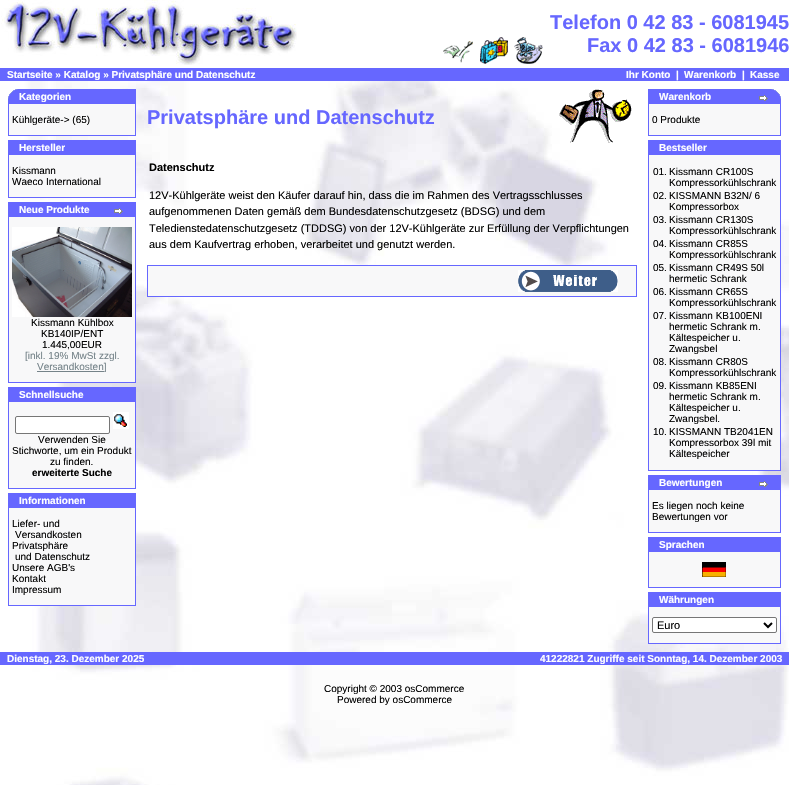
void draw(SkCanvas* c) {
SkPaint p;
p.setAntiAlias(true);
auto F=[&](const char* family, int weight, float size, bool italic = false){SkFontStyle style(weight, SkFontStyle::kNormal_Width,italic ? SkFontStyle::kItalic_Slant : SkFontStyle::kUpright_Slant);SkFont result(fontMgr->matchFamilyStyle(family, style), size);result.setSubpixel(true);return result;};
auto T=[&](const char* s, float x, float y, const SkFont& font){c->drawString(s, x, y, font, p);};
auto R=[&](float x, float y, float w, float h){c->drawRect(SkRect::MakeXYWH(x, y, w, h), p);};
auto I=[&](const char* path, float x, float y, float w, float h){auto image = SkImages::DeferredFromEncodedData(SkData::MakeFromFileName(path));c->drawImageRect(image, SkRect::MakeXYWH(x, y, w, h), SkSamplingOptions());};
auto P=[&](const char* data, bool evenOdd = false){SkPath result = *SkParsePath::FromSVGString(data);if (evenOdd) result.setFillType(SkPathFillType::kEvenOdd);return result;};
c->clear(0xffffffff);
I("1.png",16,81,773,704);
I("2.png",1,0,296,65);
I("3.png",443,41,30,22);
I("4.png",480,37,28,27);
I("5.png",514,37,29,27);
auto f1 = F("Liberation Sans",700,20);
p.setColor(0xff6667ff);
T("Telefon 0 42 83 - 6081945",550,29,f1);
T("Fax 0 42 83 - 6081946",587,52,f1);
R(0,68,789,13);
auto f2 = F("Liberation Sans",700,10);
p.setColor(0xffffffff);
T("Startseite » Katalog » Privatsphäre und Datenschutz",7,78,f2);
T("Ihr Konto",626,78,f2);
T("|",676,78,f2);
T("Warenkorb",684,78,f2);
T("|",742,78,f2);
T("Kasse",750,78,f2);
p.setColor(0xff6667ff);
R(8,89,128,47);
I("6.png",8,89,10,10);
p.setColor(0xffffffff);
T("Kategorien",19,100,f2);
p.setColor(0xfff8f8f9);
R(9,104,126,31);
auto f3 = F("Liberation Sans",400,10);
p.setColor(0xff000000);
T("Kühlgeräte-> (65)",12,123,f3);
p.setColor(0xff6667ff);
R(8,140,128,58);
p.setColor(0xffffffff);
T("Hersteller",19,151,f2);
p.setColor(0xfff8f8f9);
R(9,155,126,42);
p.setColor(0xff000000);
T("Kissmann",12,174,f3);
T("Waeco International",12,185,f3);
p.setColor(0xff6667ff);
R(8,202,128,181);
p.setColor(0xffffffff);
T("Neue Produkte",19,213,f2);
I("7.png",114,208,9,6);
p.setColor(0xfff8f8f9);
R(9,217,126,165);
I("8.png",12,227,120,90);
p.setColor(0xff000000);
T("Kissmann Kühlbox",31,326,f3);
T("KB140IP/ENT",41,337,f3);
T("1.445,00EUR",42,348,f3);
p.setColor(0xff758389);
T("[inkl. 19% MwSt zzgl.",25,359,f3);
R(37,371,67,1);
T("Versandkosten]",37,370,f3);
p.setColor(0xff6667ff);
R(8,387,128,102);
p.setColor(0xffffffff);
T("Schnellsuche",19,398,f2);
p.setColor(0xfff8f8f9);
R(9,402,126,86);
p.setColor(0xffffffff);
c->drawRoundRect(SkRect::MakeXYWH(15.5,416.5,94,17),1.5,1.5,p);
p.setStroke(true);
p.setStrokeWidth(1);
p.setColor(0xff767676);
c->drawRoundRect(SkRect::MakeXYWH(15.5,416.5,94,17),1.5,1.5,p);
I("9.png",113,412,16,17);
p.setStroke(false);
p.setColor(0xff000000);
T("Verwenden Sie",38,443,f3);
T("Stichworte, um ein Produkt",12,454,f3);
T("zu finden.",50,465,f3);
T("erweiterte Suche",32,476,f2);
p.setColor(0xff6667ff);
R(8,493,128,113);
p.setColor(0xffffffff);
T("Informationen",19,504,f2);
p.setColor(0xfff8f8f9);
R(9,508,126,97);
p.setColor(0xff000000);
T("Liefer- und",12,527,f3);
T("Versandkosten",15,538,f3);
T("Privatsphäre",12,549,f3);
T("und Datenschutz",15,560,f3);
T("Unsere AGB's",12,571,f3);
T("Kontakt",12,582,f3);
T("Impressum",12,593,f3);
p.setColor(0xff6667ff);
T("Privatsphäre und Datenschutz",147,124,f1);
I("10.png",559,89,73,54);
auto f4 = F("Liberation Sans",700,11);
p.setColor(0xff000000);
T("Datenschutz",149,171,f4);
auto f5 = F("Liberation Sans",400,11);
T("12V-Kühlgeräte weist den Käufer darauf hin, dass die im Rahmen des Vertragsschlusses",149,199,f5);
T("aufgenommenen Daten gemäß dem Bundesdatenschutzgesetz (BDSG) und dem",149,215,f5);
T("Teledienstedatenschutzgesetz (TDDSG) von der 12V-Kühlgeräte zur Erfüllung der Verpflichtungen",149,232,f5);
T("aus dem Kaufvertrag erhoben, verarbeitet und genutzt werden.",149,248,f5);
p.setColor(0xff6667ff);
R(147,265,490,32);
p.setColor(0xfff8f8f9);
R(148,266,488,30);
I("11.png",518,270,100,22);
p.setColor(0xff6667ff);
R(648,89,133,47);
p.setColor(0xffffffff);
T("Warenkorb",659,100,f2);
I("7.png",759,95,9,6);
I("12.png",771,89,10,10);
p.setColor(0xfff8f8f9);
R(649,104,131,31);
p.setColor(0xff000000);
T("0 Produkte",652,123,f3);
p.setColor(0xff6667ff);
R(648,140,133,331);
p.setColor(0xffffffff);
T("Bestseller",659,151,f2);
p.setColor(0xfff8f8f9);
R(649,155,131,315);
p.setColor(0xff000000);
T("01.",653,175,f3);
T("Kissmann CR100S",669,175,f3);
T("Kompressorkühlschrank",669,186,f3);
T("02.",653,199,f3);
T("KISSMANN B32N/ 6",669,199,f3);
T("Kompressorbox",669,210,f3);
T("03.",653,223,f3);
T("Kissmann CR130S",669,223,f3);
T("Kompressorkühlschrank",669,234,f3);
T("04.",653,247,f3);
T("Kissmann CR85S",669,247,f3);
T("Kompressorkühlschrank",669,258,f3);
T("05.",653,271,f3);
T("Kissmann CR49S 50l",669,271,f3);
T("hermetic Schrank",669,282,f3);
T("06.",653,295,f3);
T("Kissmann CR65S",669,295,f3);
T("Kompressorkühlschrank",669,306,f3);
T("07.",653,319,f3);
T("Kissmann KB100ENI",669,319,f3);
T("hermetic Schrank m.",669,330,f3);
T("Kältespeicher u.",669,341,f3);
T("Zwangsbel",669,352,f3);
T("08.",653,365,f3);
T("Kissmann CR80S",669,365,f3);
T("Kompressorkühlschrank",669,376,f3);
T("09.",653,389,f3);
T("Kissmann KB85ENI",669,389,f3);
T("hermetic Schrank m.",669,400,f3);
T("Kältespeicher u.",669,411,f3);
T("Zwangsbel.",669,422,f3);
T("10.",653,435,f3);
T("KISSMANN TB2041EN",669,435,f3);
T("Kompressorbox 39l mit",669,446,f3);
T("Kältespeicher",669,457,f3);
p.setColor(0xff6667ff);
R(648,475,133,58);
p.setColor(0xffffffff);
T("Bewertungen",659,486,f2);
I("7.png",759,481,9,6);
p.setColor(0xfff8f8f9);
R(649,490,131,42);
p.setColor(0xff000000);
T("Es liegen noch keine",652,509,f3);
T("Bewertungen vor",652,520,f3);
p.setColor(0xff6667ff);
R(648,537,133,51);
p.setColor(0xffffffff);
T("Sprachen",659,548,f2);
p.setColor(0xfff8f8f9);
R(649,552,131,35);
I("13.png",702,562,24,15);
p.setColor(0xff6667ff);
R(648,592,133,52);
p.setColor(0xffffffff);
T("Währungen",659,603,f2);
p.setColor(0xfff8f8f9);
R(649,607,131,36);
p.setColor(0xffffffff);
c->drawRoundRect(SkRect::MakeXYWH(652.5,617.5,124,15),1.5,1.5,p);
p.setStroke(true);
p.setColor(0xff767676);
c->drawRoundRect(SkRect::MakeXYWH(652.5,617.5,124,15),1.5,1.5,p);
p.setStrokeWidth(2);
p.setColor(0xff000000);
c->drawPath(P("M764 623l4 4l4-4"),p);
p.setStroke(false);
T("Euro",657,629,f5);
p.setColor(0xff6667ff);
R(0,652,789,13);
p.setColor(0xffffffff);
T("Dienstag, 23. Dezember 2025",7,662,f2);
T("41222821 Zugriffe seit Sonntag, 14. Dezember 2003",540,662,f2);
p.setColor(0xff000000);
T("Copyright © 2003 osCommerce",324,692,f3);
T("Powered by osCommerce",337,703,f3);
}
